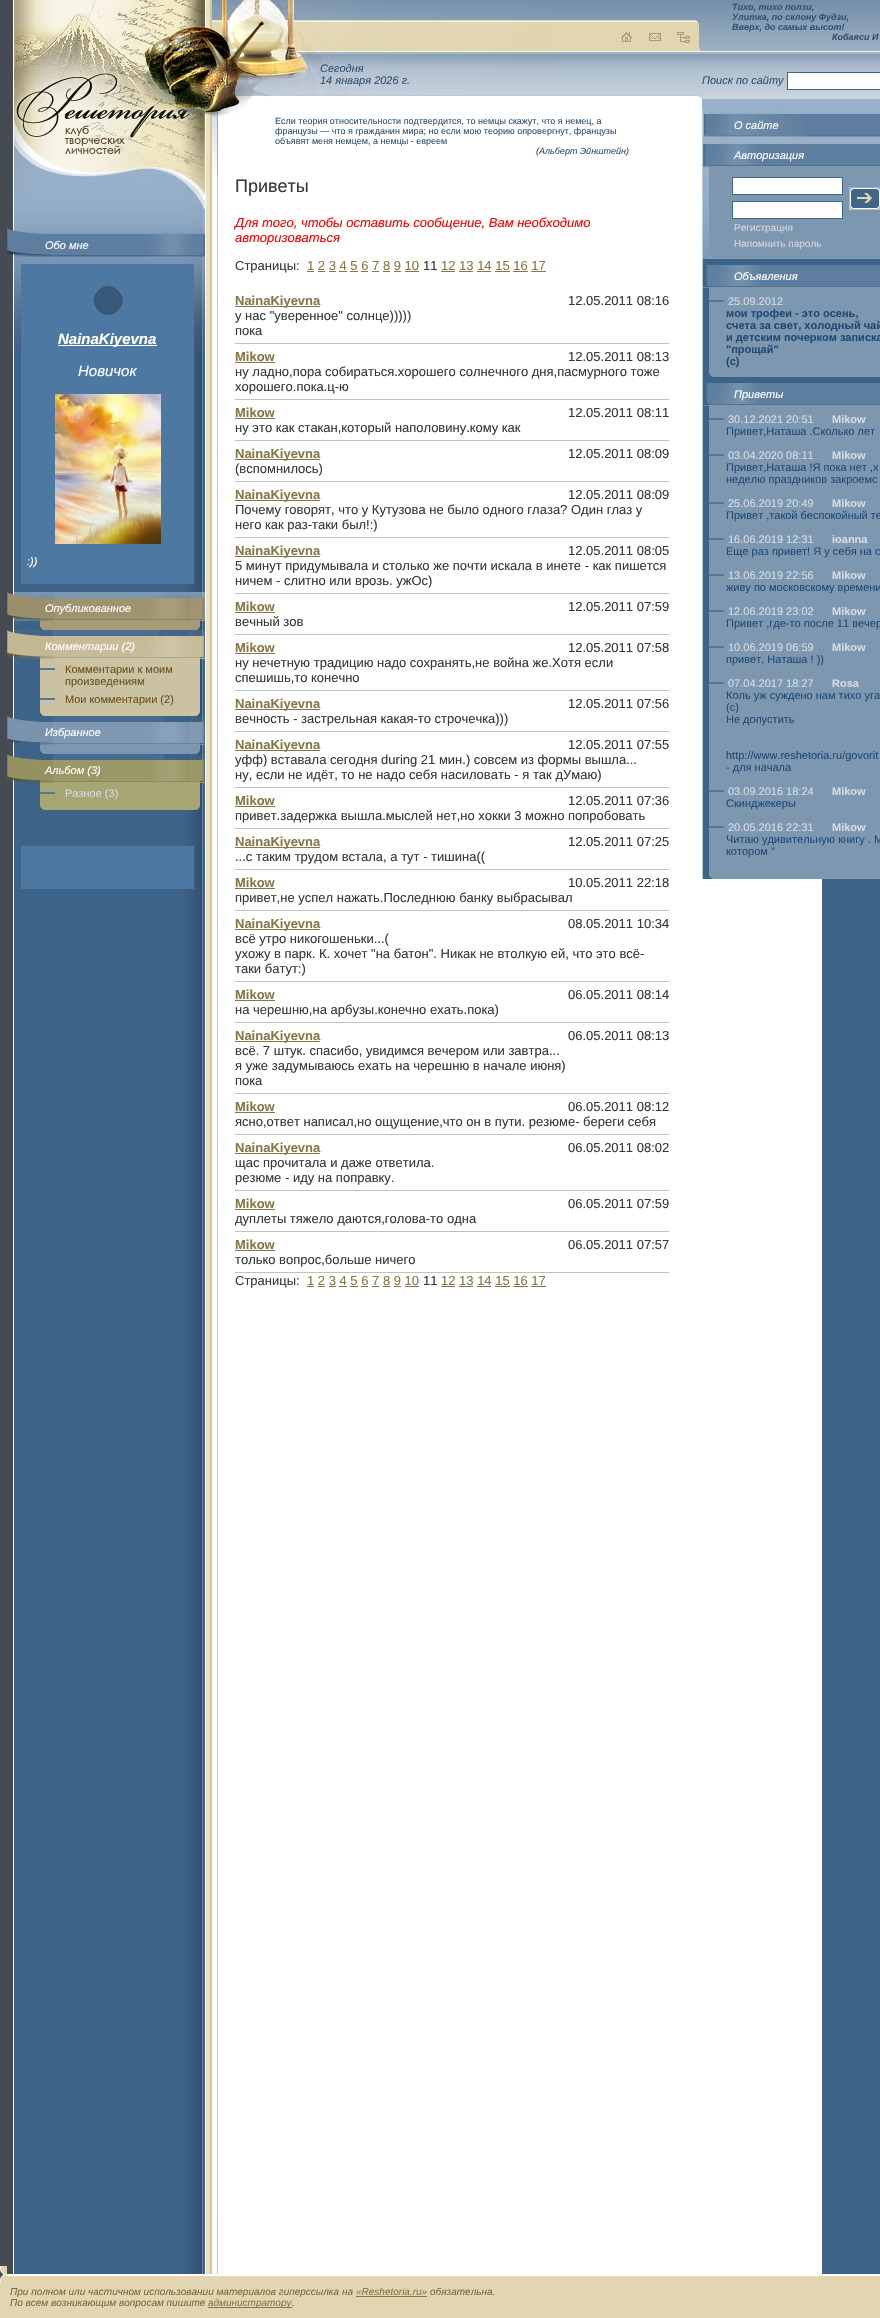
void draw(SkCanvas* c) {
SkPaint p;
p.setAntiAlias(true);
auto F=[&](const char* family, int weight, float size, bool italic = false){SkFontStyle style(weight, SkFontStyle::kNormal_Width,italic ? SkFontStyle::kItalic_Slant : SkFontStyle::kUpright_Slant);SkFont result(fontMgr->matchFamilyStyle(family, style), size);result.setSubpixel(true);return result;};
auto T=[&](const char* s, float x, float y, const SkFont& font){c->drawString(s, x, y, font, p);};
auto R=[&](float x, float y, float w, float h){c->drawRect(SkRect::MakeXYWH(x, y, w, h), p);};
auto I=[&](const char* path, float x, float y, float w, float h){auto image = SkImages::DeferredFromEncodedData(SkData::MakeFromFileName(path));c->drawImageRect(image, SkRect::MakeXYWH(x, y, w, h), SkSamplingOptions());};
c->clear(0xffffffff);
I("1.png",0,0,218,2274);
I("2.png",14,0,191,354);
I("3.png",14,65,177,98);
I("4.png",54,228,93,29);
I("5.png",7,228,47,29);
I("6.png",147,228,58,29);
auto f1 = F("Liberation Sans",400,11,true);
p.setColor(0xffffffff);
T("Обо мне",45,249,f1);
p.setColor(0xff4d78a1);
R(21,264,173,320);
I("7.png",93,285,30,30);
p.setColor(0xffffffff);
R(58,345,99,1);
auto f2 = F("Liberation Sans",700,15,true);
T("NainaKiyevna",58,344,f2);
auto f3 = F("Liberation Sans",400,15,true);
T("Новичок",78,376,f3);
I("8.png",55,394,106,150);
T(":))",27,565,f1);
I("9.png",53,592,152,29);
p.setColor(0xffa69b77);
R(40,620,160,10);
I("10.png",7,592,46,29);
I("11.png",149,592,56,28);
p.setColor(0xffffffff);
T("Опубликованное",45,612,f1);
I("12.png",196,625,4,5);
I("13.png",40,625,4,5);
I("14.png",53,630,152,29);
p.setColor(0xffcac2a3);
R(40,658,160,58);
I("15.png",7,630,46,29);
I("16.png",142,630,63,28);
p.setColor(0xffffffff);
T("Комментарии (2)",45,650,f1);
I("17.png",196,712,4,4);
I("18.png",40,712,4,4);
I("19.png",40,668,15,2);
auto f4 = F("Liberation Sans",400,11);
p.setColor(0xff69511f);
T("Комментарии к моим",65,673,f4);
T("произведениям",65,685,f4);
I("19.png",40,698,15,2);
T("Мои комментарии (2)",65,703,f4);
I("20.png",53,716,152,29);
p.setColor(0xff7d97b1);
R(40,744,160,10);
I("21.png",7,716,46,29);
I("22.png",148,716,57,28);
p.setColor(0xffffffff);
T("Избранное",45,736,f1);
I("23.png",196,750,4,4);
I("24.png",40,750,4,4);
I("25.png",53,754,152,29);
p.setColor(0xffa7a673);
R(40,782,160,28);
I("26.png",7,754,46,29);
I("27.png",148,754,57,28);
p.setColor(0xffffffff);
T("Альбом (3)",45,774,f1);
I("28.png",196,806,4,4);
I("29.png",40,806,4,4);
I("19.png",40,792,15,2);
p.setColor(0xffd4dce5);
T("Разное (3)",65,797,f4);
p.setColor(0xff4d78a1);
R(21,846,173,43);
I("30.png",206,0,12,2216);
I("32.png",217,0,485,176);
I("33.png",212,0,5,176);
I("35.png",217,0,337,95);
p.setColor(0xffffffff);
R(218,96,484,80);
p.setColor(0xffbbc8d6);
R(235,95,467,1);
I("31.png",140,0,169,116);
I("34.png",554,20,140,31);
I("36.png",694,20,8,31);
I("37.png",621,32,11,10);
I("38.png",649,33,12,8);
I("39.png",677,32,13,11);
p.setColor(0xff32516d);
T("Сегодня",320,72,f1);
T("14 января 2026 г.",320,84,f1);
I("40.png",697,96,5,4);
auto f5 = F("Liberation Sans",400,9);
T("Если теория относительности подтвердится, то немцы скажут, что я немец, а",275,124,f5);
T("французы — что я гражданин мира; но если мою теорию опровергнут, французы",275,134,f5);
T("объявят меня немцем, а немцы - евреем",275,144,f5);
auto f6 = F("Liberation Sans",400,9,true);
T("(Альберт Эйнштейн)",536,154,f6);
auto f7 = F("Liberation Sans",400,18);
p.setColor(0xff383838);
T("Приветы",235,192,f7);
auto f8 = F("Liberation Sans",400,13,true);
p.setColor(0xffff0000);
T("Для того, чтобы оставить сообщение, Вам необходимо",235,227,f8);
T("авторизоваться",235,242,f8);
auto f9 = F("Liberation Sans",400,13);
p.setColor(0xff383838);
T("Страницы:",235,270,f9);
p.setColor(0xff877747);
T("1 2 3 4 5 6 7 8 9 10",307,270,f9);
R(307,271,7,1);
p.setColor(0xff383838);
T("11",423,270,f9);
p.setColor(0xff877747);
T("12 13 14 15 16 17",441,270,f9);
R(441,271,14,1);
R(318,271,7,1);
R(329,271,7,1);
R(339,271,8,1);
R(350,271,8,1);
R(361,271,7,1);
R(372,271,7,1);
R(383,271,7,1);
R(394,271,7,1);
R(405,271,14,1);
R(459,271,14,1);
R(477,271,14,1);
R(495,271,15,1);
R(513,271,15,1);
R(531,271,15,1);
R(235,306,85,1);
auto f10 = F("Liberation Sans",700,13);
T("NainaKiyevna",235,305,f10);
p.setColor(0xff383838);
T("12.05.2011 08:16",568,305,f9);
T("у нас \"уверенное\" солнце)))))",235,320,f9);
T("пока",235,335,f9);
p.setColor(0xffc0c0c0);
R(235,343,434,1);
p.setColor(0xff877747);
T("Mikow",235,361,f10);
R(235,362,40,1);
p.setColor(0xff383838);
T("12.05.2011 08:13",568,361,f9);
T("ну ладно,пора собираться.хорошего солнечного дня,пасмурного тоже",235,376,f9);
T("хорошего.пока.ц-ю",235,391,f9);
p.setColor(0xffc0c0c0);
R(235,399,434,1);
p.setColor(0xff877747);
T("Mikow",235,417,f10);
R(235,418,40,1);
p.setColor(0xff383838);
T("12.05.2011 08:11",568,417,f9);
T("ну это как стакан,который наполовину.кому как",235,432,f9);
p.setColor(0xffc0c0c0);
R(235,440,434,1);
p.setColor(0xff877747);
R(235,459,85,1);
T("NainaKiyevna",235,458,f10);
p.setColor(0xff383838);
T("12.05.2011 08:09",568,458,f9);
T("(вспомнилось)",235,473,f9);
p.setColor(0xffc0c0c0);
R(235,481,434,1);
p.setColor(0xff877747);
R(235,500,85,1);
T("NainaKiyevna",235,499,f10);
p.setColor(0xff383838);
T("12.05.2011 08:09",568,499,f9);
T("Почему говорят, что у Кутузова не было одного глаза? Один глаз у",235,514,f9);
T("него как раз-таки был!:)",235,529,f9);
p.setColor(0xffc0c0c0);
R(235,537,434,1);
p.setColor(0xff877747);
R(235,556,85,1);
T("NainaKiyevna",235,555,f10);
p.setColor(0xff383838);
T("12.05.2011 08:05",568,555,f9);
T("5 минут придумывала и столько же почти искала в инете - как пишется",235,570,f9);
T("ничем - слитно или врозь. ужОс)",235,585,f9);
p.setColor(0xffc0c0c0);
R(235,593,434,1);
p.setColor(0xff877747);
T("Mikow",235,611,f10);
R(235,612,40,1);
p.setColor(0xff383838);
T("12.05.2011 07:59",568,611,f9);
T("вечный зов",235,626,f9);
p.setColor(0xffc0c0c0);
R(235,634,434,1);
p.setColor(0xff877747);
T("Mikow",235,652,f10);
R(235,653,40,1);
p.setColor(0xff383838);
T("12.05.2011 07:58",568,652,f9);
T("ну нечетную традицию надо сохранять,не война же.Хотя если",235,667,f9);
T("спешишь,то конечно",235,682,f9);
p.setColor(0xffc0c0c0);
R(235,690,434,1);
p.setColor(0xff877747);
R(235,709,85,1);
T("NainaKiyevna",235,708,f10);
p.setColor(0xff383838);
T("12.05.2011 07:56",568,708,f9);
T("вечность - застрельная какая-то строчечка)))",235,723,f9);
p.setColor(0xffc0c0c0);
R(235,731,434,1);
p.setColor(0xff877747);
R(235,750,85,1);
T("NainaKiyevna",235,749,f10);
p.setColor(0xff383838);
T("12.05.2011 07:55",568,749,f9);
T("уфф) вставала сегодня during 21 мин.) совсем из формы вышла...",235,764,f9);
T("ну, если не идёт, то не надо себя насиловать - я так дУмаю)",235,779,f9);
p.setColor(0xffc0c0c0);
R(235,787,434,1);
p.setColor(0xff877747);
T("Mikow",235,805,f10);
R(235,806,40,1);
p.setColor(0xff383838);
T("12.05.2011 07:36",568,805,f9);
T("привет.задержка вышла.мыслей нет,но хокки 3 можно попробовать",235,820,f9);
p.setColor(0xffc0c0c0);
R(235,828,434,1);
p.setColor(0xff877747);
R(235,847,85,1);
T("NainaKiyevna",235,846,f10);
p.setColor(0xff383838);
T("12.05.2011 07:25",568,846,f9);
T("...с таким трудом встала, а тут - тишина((",235,861,f9);
p.setColor(0xffc0c0c0);
R(235,869,434,1);
p.setColor(0xff877747);
T("Mikow",235,887,f10);
R(235,888,40,1);
p.setColor(0xff383838);
T("10.05.2011 22:18",568,887,f9);
T("привет,не успел нажать.Последнюю банку выбрасывал",235,902,f9);
p.setColor(0xffc0c0c0);
R(235,910,434,1);
p.setColor(0xff877747);
R(235,929,85,1);
T("NainaKiyevna",235,928,f10);
p.setColor(0xff383838);
T("08.05.2011 10:34",568,928,f9);
T("всё утро никогошеньки...(",235,943,f9);
T("ухожу в парк. К. хочет \"на батон\". Никак не втолкую ей, что это всё-",235,958,f9);
T("таки батут:)",235,973,f9);
p.setColor(0xffc0c0c0);
R(235,981,434,1);
p.setColor(0xff877747);
T("Mikow",235,999,f10);
R(235,1000,40,1);
p.setColor(0xff383838);
T("06.05.2011 08:14",568,999,f9);
T("на черешню,на арбузы.конечно ехать.пока)",235,1014,f9);
p.setColor(0xffc0c0c0);
R(235,1022,434,1);
p.setColor(0xff877747);
R(235,1041,85,1);
T("NainaKiyevna",235,1040,f10);
p.setColor(0xff383838);
T("06.05.2011 08:13",568,1040,f9);
T("всё. 7 штук. спасибо, увидимся вечером или завтра...",235,1055,f9);
T("я уже задумываюсь ехать на черешню в начале июня)",235,1070,f9);
T("пока",235,1085,f9);
p.setColor(0xffc0c0c0);
R(235,1093,434,1);
p.setColor(0xff877747);
T("Mikow",235,1111,f10);
R(235,1112,40,1);
p.setColor(0xff383838);
T("06.05.2011 08:12",568,1111,f9);
T("ясно,ответ написал,но ощущение,что он в пути. резюме- береги себя",235,1126,f9);
p.setColor(0xffc0c0c0);
R(235,1134,434,1);
p.setColor(0xff877747);
R(235,1153,85,1);
T("NainaKiyevna",235,1152,f10);
p.setColor(0xff383838);
T("06.05.2011 08:02",568,1152,f9);
T("щас прочитала и даже ответила.",235,1167,f9);
T("резюме - иду на поправку.",235,1182,f9);
p.setColor(0xffc0c0c0);
R(235,1190,434,1);
p.setColor(0xff877747);
T("Mikow",235,1208,f10);
R(235,1209,40,1);
p.setColor(0xff383838);
T("06.05.2011 07:59",568,1208,f9);
T("дуплеты тяжело даются,голова-то одна",235,1223,f9);
p.setColor(0xffc0c0c0);
R(235,1231,434,1);
p.setColor(0xff877747);
T("Mikow",235,1249,f10);
R(235,1250,40,1);
p.setColor(0xff383838);
T("06.05.2011 07:57",568,1249,f9);
T("только вопрос,больше ничего",235,1264,f9);
p.setColor(0xffc0c0c0);
R(235,1272,434,1);
p.setColor(0xff383838);
T("Страницы:",235,1285,f9);
p.setColor(0xff877747);
T("1 2 3 4 5 6 7 8 9 10",307,1285,f9);
R(307,1286,7,1);
p.setColor(0xff383838);
T("11",423,1285,f9);
p.setColor(0xff877747);
T("12 13 14 15 16 17",441,1285,f9);
R(441,1286,14,1);
R(318,1286,7,1);
R(329,1286,7,1);
R(339,1286,8,1);
R(350,1286,8,1);
R(361,1286,7,1);
R(372,1286,7,1);
R(383,1286,7,1);
R(394,1286,7,1);
R(405,1286,14,1);
R(459,1286,14,1);
R(477,1286,14,1);
R(495,1286,15,1);
R(513,1286,15,1);
R(531,1286,15,1);
p.setColor(0xff3d6388);
R(822,879,58,1395);
I("41.png",702,0,178,259);
auto f11 = F("Liberation Sans",700,9,true);
p.setColor(0xff32516d);
T("Тихо, тихо ползи,",732,10,f11);
T("Улитка, по склону Фудзи,",732,20,f11);
T("Вверх, до самых высот!",732,30,f11);
T("Кобаяси И",832,40,f11);
T("Поиск по сайту",702,84,f1);
p.setColor(0xffffffff);
c->drawRect(SkRect::MakeXYWH(787.5,72.5,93,17),p);
p.setStroke(true);
p.setStrokeWidth(1);
p.setColor(0xff3f658a);
c->drawRect(SkRect::MakeXYWH(787.5,72.5,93,17),p);
I("42.png",803,113,77,24);
p.setStroke(false);
p.setColor(0xffbbc8d6);
R(702,108,1,771);
I("43.png",703,108,100,29);
p.setColor(0xffffffff);
T("О сайте",734,129,f1);
I("44.png",703,144,177,23);
I("45.png",704,144,71,22);
T("Авторизация",734,159,f1);
p.setColor(0xff7d97b1);
R(709,166,171,93);
p.setColor(0xff829db7);
R(709,256,3,3);
p.setColor(0xffffffff);
c->drawRect(SkRect::MakeXYWH(732.5,177.5,110,17),p);
p.setStroke(true);
p.setColor(0xff3f658a);
c->drawRect(SkRect::MakeXYWH(732.5,177.5,110,17),p);
I("46.png",849,187,31,23);
p.setStroke(false);
p.setColor(0xffffffff);
c->drawRect(SkRect::MakeXYWH(732.5,201.5,110,17),p);
p.setStroke(true);
p.setColor(0xff3f658a);
c->drawRect(SkRect::MakeXYWH(732.5,201.5,110,17),p);
auto f12 = F("Liberation Sans",400,10);
p.setStroke(false);
p.setColor(0xffd1d7de);
T("Регистрация",734,231,f12);
T("Напомнить пароль",734,247,f12);
p.setColor(0xff3d6388);
R(703,259,177,620);
I("44.png",703,265,177,23);
I("47.png",703,265,56,22);
p.setColor(0xffffffff);
T("Объявления",734,280,f1);
p.setColor(0xff7d97b1);
R(709,287,171,90);
I("48.png",709,372,5,5);
I("19.png",709,300,15,2);
p.setColor(0xffd4dce5);
T("25.09.2012",728,305,f4);
auto f13 = F("Liberation Sans",700,11);
p.setColor(0xff204a73);
T("мои трофеи - это осень,",726,317,f13);
T("счета за свет, холодный чай",726,329,f13);
T("и детским почерком записка",726,341,f13);
T("\"прощай\"",726,353,f13);
T("(с)",726,365,f13);
I("44.png",703,383,177,23);
I("47.png",703,383,56,22);
p.setColor(0xffffffff);
T("Приветы",734,398,f1);
p.setColor(0xff7d97b1);
R(709,405,171,474);
I("48.png",709,874,5,5);
I("19.png",709,418,15,2);
p.setColor(0xffd4dce5);
T("30.12.2021 20:51",728,423,f4);
T("Mikow",832,423,f13);
p.setColor(0xff204a73);
T("Привет,Наташа .Сколько лет",726,435,f4);
I("19.png",709,454,15,2);
p.setColor(0xffd4dce5);
T("03.04.2020 08:11",728,459,f4);
T("Mikow",832,459,f13);
p.setColor(0xff204a73);
T("Привет,Наташа !Я пока нет ,х",726,471,f4);
T("неделю праздников закроемс",726,483,f4);
I("19.png",709,502,15,2);
p.setColor(0xffd4dce5);
T("25.06.2019 20:49",728,507,f4);
T("Mikow",832,507,f13);
p.setColor(0xff204a73);
T("Привет ,такой беспокойный те",726,519,f4);
I("19.png",709,538,15,2);
p.setColor(0xffd4dce5);
T("16.06.2019 12:31",728,543,f4);
T("ioanna",832,543,f13);
p.setColor(0xff204a73);
T("Еще раз привет! Я у себя на с",726,555,f4);
I("19.png",709,574,15,2);
p.setColor(0xffd4dce5);
T("13.06.2019 22:56",728,579,f4);
T("Mikow",832,579,f13);
p.setColor(0xff204a73);
T("живу по московскому времени",726,591,f4);
I("19.png",709,610,15,2);
p.setColor(0xffd4dce5);
T("12.06.2019 23:02",728,615,f4);
T("Mikow",832,615,f13);
p.setColor(0xff204a73);
T("Привет ,где-то после 11 вечер",726,627,f4);
I("19.png",709,646,15,2);
p.setColor(0xffd4dce5);
T("10.06.2019 06:59",728,651,f4);
T("Mikow",832,651,f13);
p.setColor(0xff204a73);
T("привет, Наташа ! ))",726,663,f4);
I("19.png",709,682,15,2);
p.setColor(0xffd4dce5);
T("07.04.2017 18:27",728,687,f4);
T("Rosa",832,687,f13);
p.setColor(0xff204a73);
T("Коль уж суждено нам тихо уга",726,699,f4);
T("(с)",726,711,f4);
T("Не допустить",726,723,f4);
T("http://www.reshetoria.ru/govorit",726,759,f4);
T("- для начала",726,771,f4);
I("19.png",709,790,15,2);
p.setColor(0xffd4dce5);
T("03.09.2016 18:24",728,795,f4);
T("Mikow",832,795,f13);
p.setColor(0xff204a73);
T("Скинджекеры",726,807,f4);
I("19.png",709,826,15,2);
p.setColor(0xffd4dce5);
T("20.05.2016 22:31",728,831,f4);
T("Mikow",832,831,f13);
p.setColor(0xff204a73);
T("Читаю удивительную книгу . М",726,843,f4);
T("котором \"",726,855,f4);
I("49.png",0,2266,7,8);
p.setColor(0xffe1d6b1);
R(0,2276,880,42);
I("50.png",0,2274,7,9);
auto f14 = F("Liberation Sans",400,10,true);
p.setColor(0xff796a3b);
T("При полном или частичном использовании материалов гиперссылка на",10,2295,f14);
p.setColor(0xff877747);
T("«Reshetoria.ru»",356,2295,f14);
R(356,2296,71,1);
p.setColor(0xff796a3b);
T("обязательна.",430,2295,f14);
T("По всем возникающим вопросам пишите",10,2306,f14);
p.setColor(0xff877747);
R(208,2307,84,1);
T("администратору",208,2306,f14);
p.setColor(0xff796a3b);
T(".",292,2306,f14);
}
